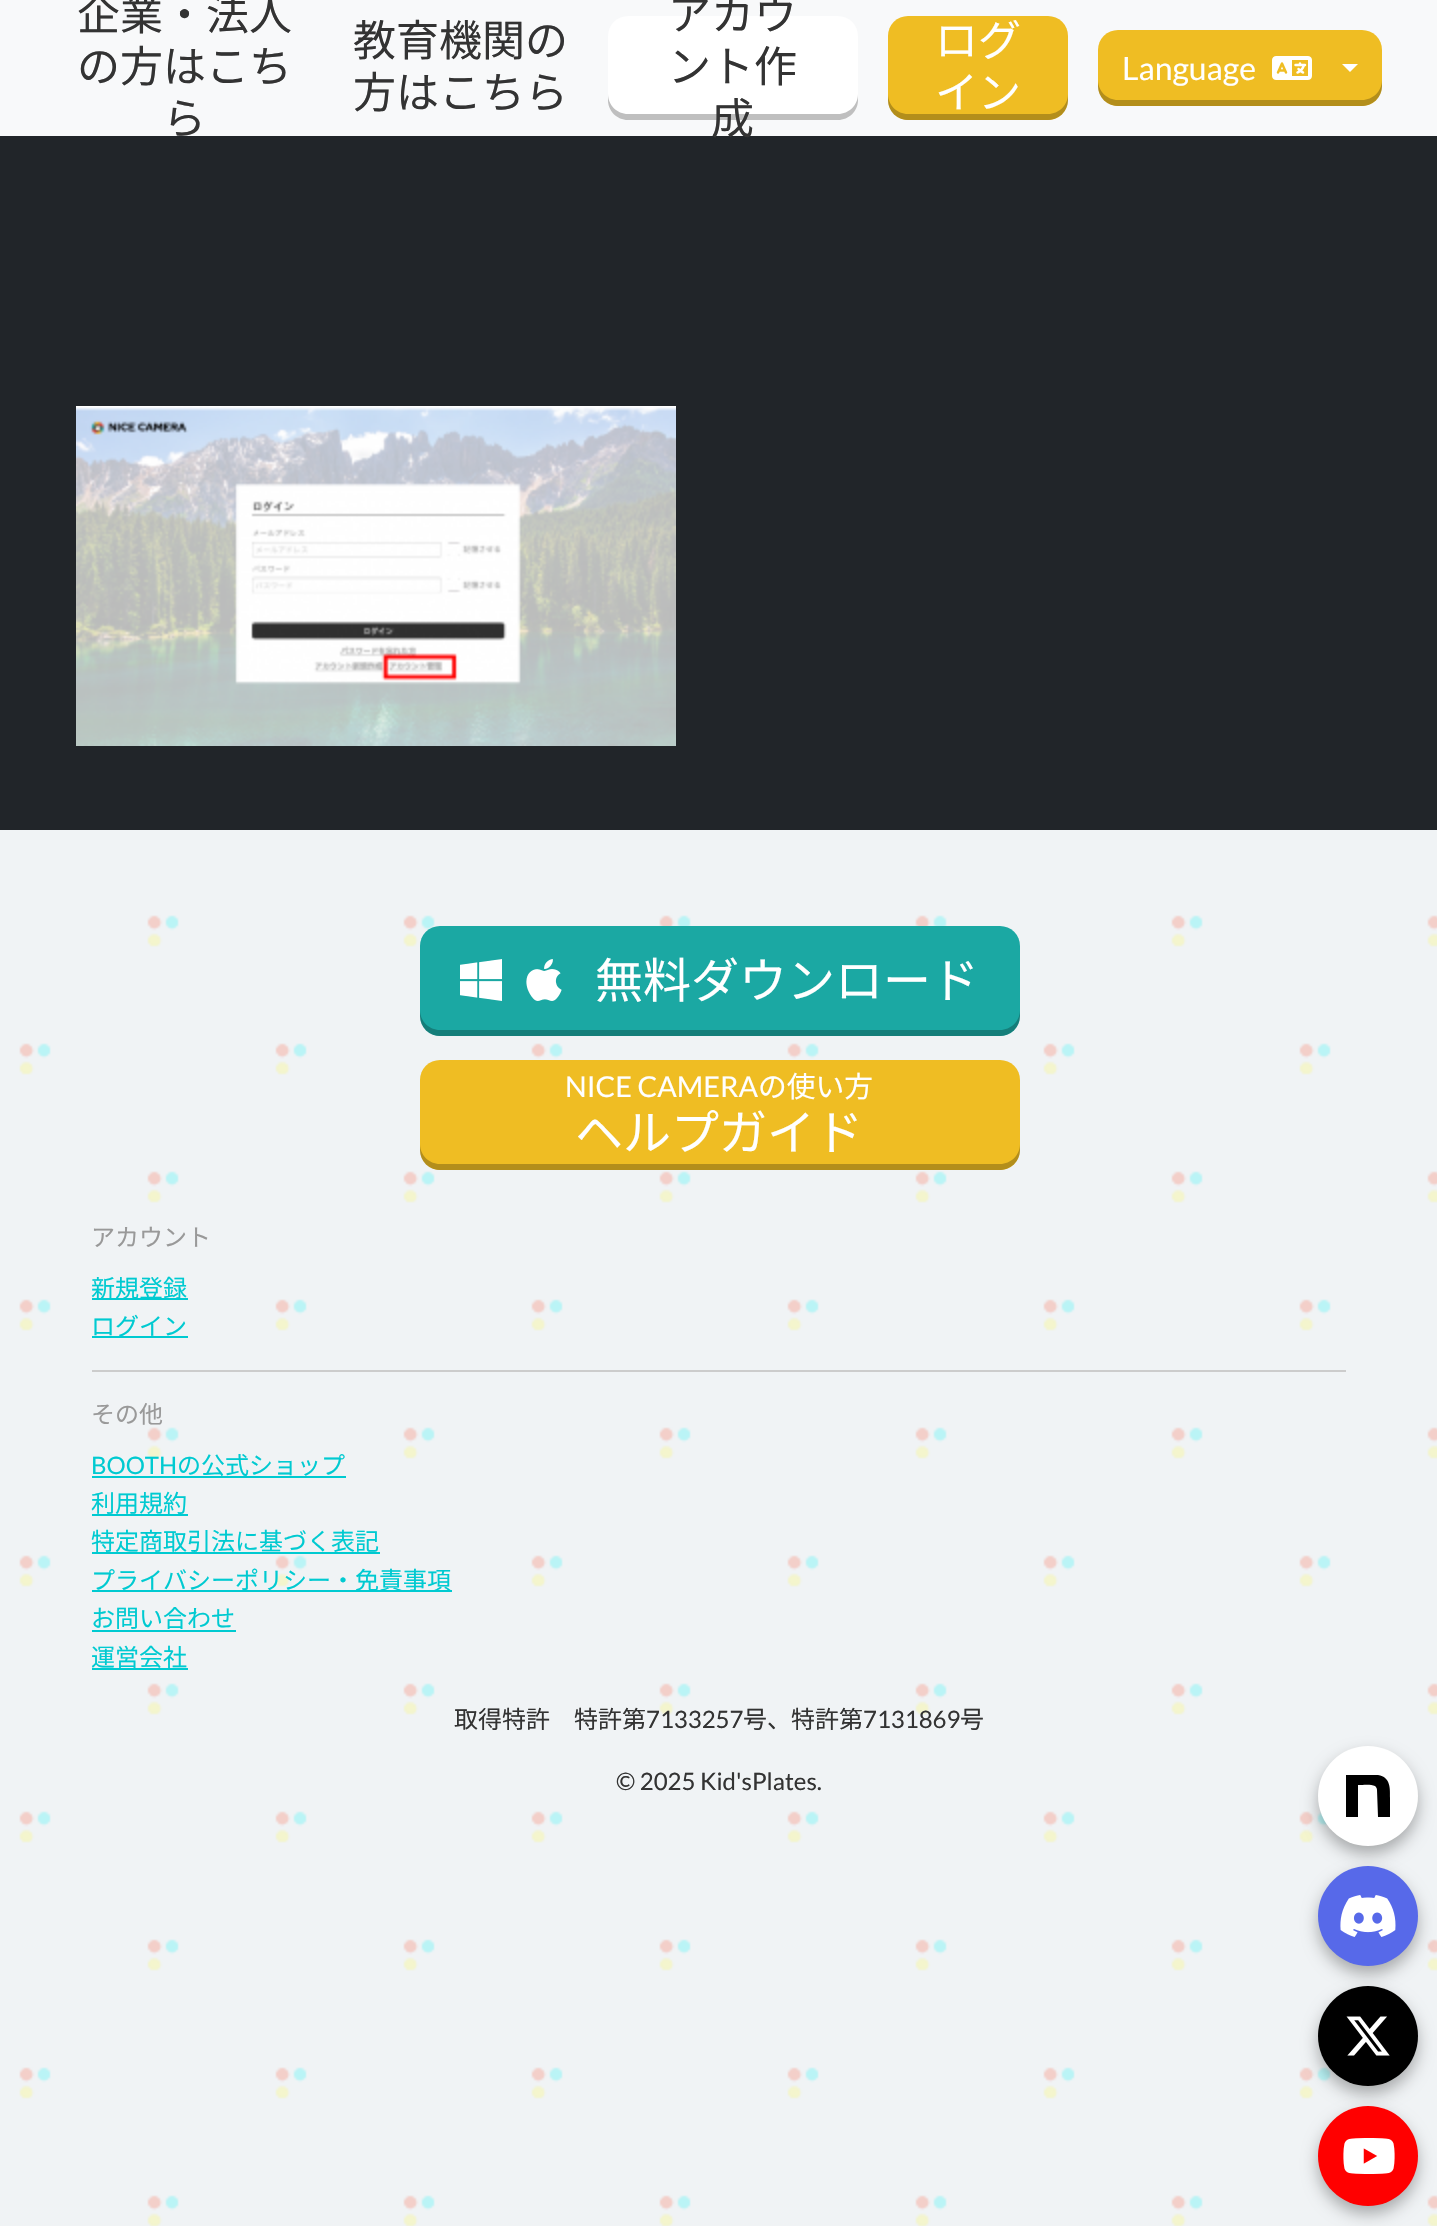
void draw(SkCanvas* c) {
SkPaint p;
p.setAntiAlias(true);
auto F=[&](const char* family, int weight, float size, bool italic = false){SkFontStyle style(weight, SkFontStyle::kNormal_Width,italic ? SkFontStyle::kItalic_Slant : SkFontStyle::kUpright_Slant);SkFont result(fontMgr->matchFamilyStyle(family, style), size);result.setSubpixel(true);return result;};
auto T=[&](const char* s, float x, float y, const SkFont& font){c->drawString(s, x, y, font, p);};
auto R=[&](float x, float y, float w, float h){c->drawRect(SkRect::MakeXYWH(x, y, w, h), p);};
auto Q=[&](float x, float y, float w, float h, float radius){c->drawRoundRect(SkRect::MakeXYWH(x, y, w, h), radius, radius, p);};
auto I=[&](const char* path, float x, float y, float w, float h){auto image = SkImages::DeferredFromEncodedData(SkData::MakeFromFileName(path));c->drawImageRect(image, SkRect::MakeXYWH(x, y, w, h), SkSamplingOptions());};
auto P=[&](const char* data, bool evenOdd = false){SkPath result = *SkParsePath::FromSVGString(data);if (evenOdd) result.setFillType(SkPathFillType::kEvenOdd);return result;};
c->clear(0xffffffff);
I("1.png",0,830,1437,1396);
p.setColor(0xfff8f9fa);
R(0,0,1437,136);
auto f1 = F("Noto Sans JP",400,43);
p.setColor(0xff333333);
T("企業・法人",77,30,f1);
T("の方はこち",77,82,f1);
T("ら",163,134,f1);
T("教育機関の",353,56,f1);
T("方はこちら",353,108,f1);
p.setColor(0xffffffff);
Q(608,16,250,104,20);
p.setColor(0x40000000);
c->drawPath(P("M608 94v6c0 11 9 20 20 20h210c11 0 20-9 20-20v-6c0 11-9 20-20 20h-210c-11 0-20-9-20-20z"),p);
p.setColor(0xff333333);
T("アカウ",668,30,f1);
T("ント作",668,82,f1);
p.setColor(0xff212529);
R(0,136,1437,694);
p.setColor(0xff333333);
T("成",711,134,f1);
p.setColor(0xffefbd23);
Q(888,16,180,104,20);
p.setColor(0x40000000);
c->drawPath(P("M888 94v6c0 11 9 20 20 20h140c11 0 20-9 20-20v-6c0 11-9 20-20 20h-140c-11 0-20-9-20-20z"),p);
p.setColor(0xffffffff);
T("ログ",935,56,f1);
T("イン",935,108,f1);
p.setColor(0xffefbd23);
Q(1098,30,284,76,20);
p.setColor(0x40000000);
c->drawPath(P("M1098 80v6c0 11 9 20 20 20h244c11 0 20-9 20-20v-6c0 11-9 20-20 20h-244c-11 0-20-9-20-20z"),p);
auto f2 = F("Lato",400,32);
p.setColor(0xffffffff);
T("Language",1122,80,f2);
I("2.png",1272,56,40,24);
c->drawPath(P("M1342 64h16l-8 8z"),p);
I("3.png",76,406,600,340);
p.setColor(0xff1ba8a3);
Q(420,926,600,110,20);
p.setColor(0x40000000);
c->drawPath(P("M420 1010v6c0 11 9 20 20 20h560c11 0 20-9 20-20v-6c0 11-9 20-20 20h-560c-11 0-20-9-20-20z"),p);
I("4.png",460,959,42,42);
I("5.png",526,959,36,42);
auto f3 = F("Noto Sans JP",400,48);
p.setColor(0xffffffff);
T("無料ダウンロード",595,998,f3);
p.setColor(0xffefbd23);
Q(420,1060,600,110,20);
p.setColor(0x40000000);
c->drawPath(P("M420 1144v6c0 11 9 20 20 20h560c11 0 20-9 20-20v-6c0 11-9 20-20 20h-560c-11 0-20-9-20-20z"),p);
auto f4 = F("Lato",400,28.75);
p.setColor(0xffffffff);
T("NICE CAMERA",565,1097,f4);
auto f5 = F("Noto Sans JP",400,28.75);
T("の使い方",758,1097,f5);
T("ヘルプガイド",575,1150,f3);
p.setColor(0xffcccccc);
R(92,1370,1254,2);
auto f6 = F("Noto Sans JP",400,24);
p.setColor(0xff999999);
T("アカウント",91,1246,f6);
p.setColor(0xff00cad1);
R(92,1298,96,2);
T("新規登録",91,1297,f6);
R(92,1336,96,2);
T("ログイン",91,1335,f6);
p.setColor(0xff999999);
T("その他",91,1423,f6);
auto f7 = F("Lato",400,24);
p.setColor(0xff00cad1);
T("BOOTH",91,1474,f7);
R(92,1476,254,2);
T("の公式ショップ",177,1474,f6);
T("利用規約",91,1512,f6);
R(92,1514,96,2);
T("特定商取引法に基づく表記",91,1550,f6);
R(92,1552,288,2);
R(92,1590,360,2);
T("プライバシーポリシー・免責事項",91,1589,f6);
T("お問い合わせ",91,1627,f6);
R(92,1630,144,2);
T("運営会社",91,1666,f6);
R(92,1668,96,2);
p.setColor(0xff333333);
T("取得特許　特許第",454,1728,f6);
T("7133257",646,1728,f7);
T("号、特許第",743,1728,f6);
T("7131869",863,1728,f7);
T("号",960,1728,f6);
T("© 2025 Kid'sPlates.",616,1790,f7);
p.setColor(0x4d000000);
p.setMaskFilter(SkMaskFilter::MakeBlur(kNormal_SkBlurStyle, 8));
c->drawRoundRect(SkRect::MakeXYWH(1318,1754,100,100),50,50,p);
p.setMaskFilter(nullptr);
p.setColor(0xffffffff);
c->drawCircle(1368,1796,50,p);
p.setColor(0xff000000);
c->drawPath(P("M1346 1775h32c13 2 12 14 12 23v19h-12l-1-27c0-2-1-3-2-4c-4-2-12-1-17-1v32h-12z"),p);
p.setColor(0x4d000000);
p.setMaskFilter(SkMaskFilter::MakeBlur(kNormal_SkBlurStyle, 8));
c->drawRoundRect(SkRect::MakeXYWH(1318,1874,100,100),50,50,p);
p.setMaskFilter(nullptr);
p.setColor(0xff5769e9);
c->drawCircle(1368,1916,50,p);
I("6.png",1340,1895,56,42);
p.setColor(0x4d000000);
p.setMaskFilter(SkMaskFilter::MakeBlur(kNormal_SkBlurStyle, 8));
c->drawRoundRect(SkRect::MakeXYWH(1318,1994,100,100),50,50,p);
p.setMaskFilter(nullptr);
p.setColor(0xff000000);
c->drawCircle(1368,2036,50,p);
I("7.png",1346,2016,44,40);
p.setColor(0x4d000000);
p.setMaskFilter(SkMaskFilter::MakeBlur(kNormal_SkBlurStyle, 8));
c->drawRoundRect(SkRect::MakeXYWH(1318,2114,100,100),50,50,p);
p.setMaskFilter(nullptr);
p.setColor(0xffff0000);
c->drawCircle(1368,2156,50,p);
I("8.png",1343,2138,52,36);
}
